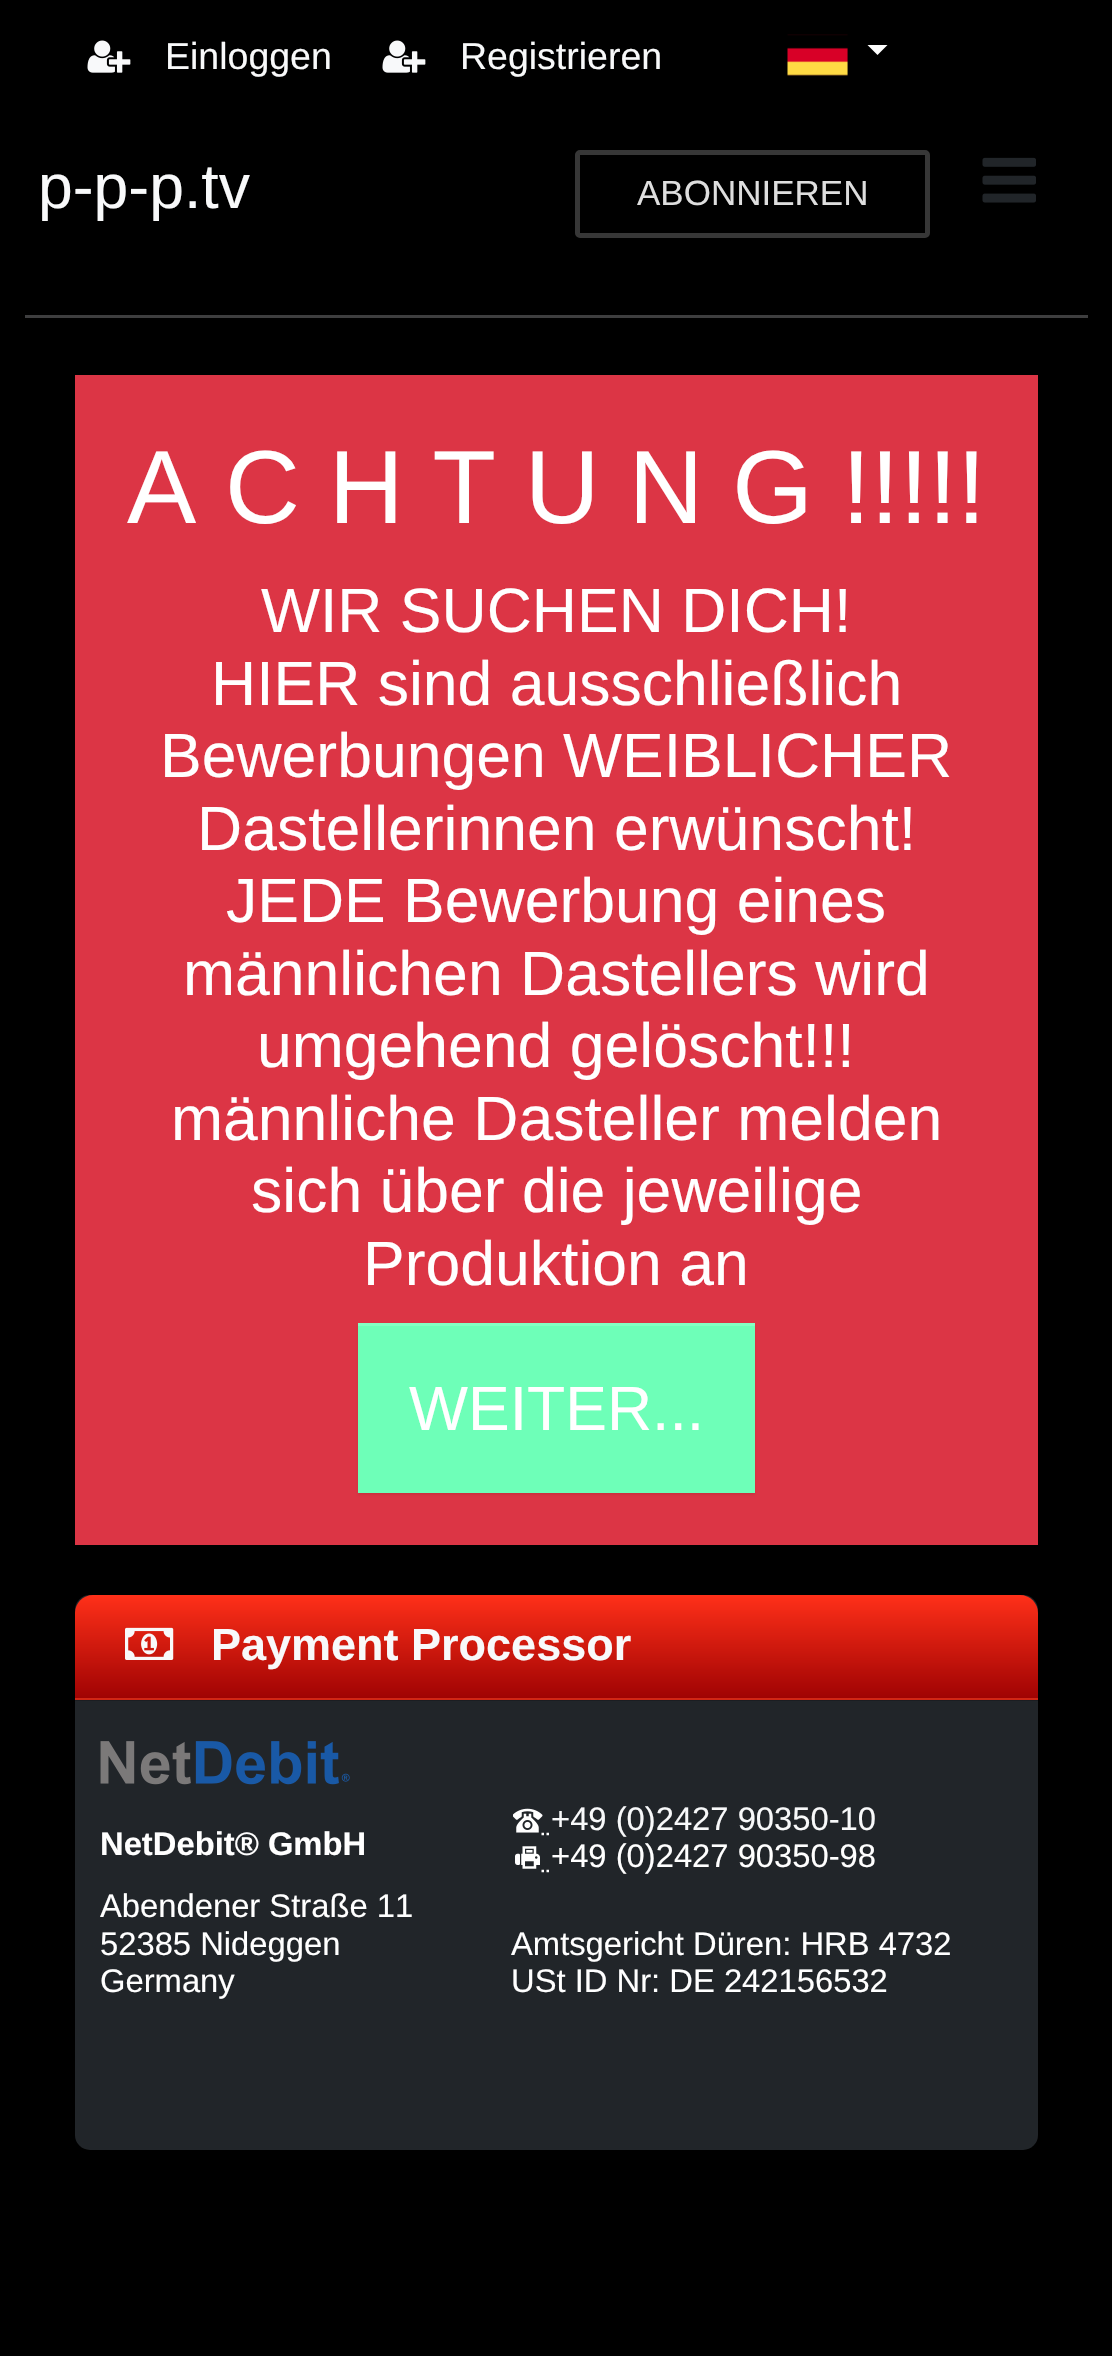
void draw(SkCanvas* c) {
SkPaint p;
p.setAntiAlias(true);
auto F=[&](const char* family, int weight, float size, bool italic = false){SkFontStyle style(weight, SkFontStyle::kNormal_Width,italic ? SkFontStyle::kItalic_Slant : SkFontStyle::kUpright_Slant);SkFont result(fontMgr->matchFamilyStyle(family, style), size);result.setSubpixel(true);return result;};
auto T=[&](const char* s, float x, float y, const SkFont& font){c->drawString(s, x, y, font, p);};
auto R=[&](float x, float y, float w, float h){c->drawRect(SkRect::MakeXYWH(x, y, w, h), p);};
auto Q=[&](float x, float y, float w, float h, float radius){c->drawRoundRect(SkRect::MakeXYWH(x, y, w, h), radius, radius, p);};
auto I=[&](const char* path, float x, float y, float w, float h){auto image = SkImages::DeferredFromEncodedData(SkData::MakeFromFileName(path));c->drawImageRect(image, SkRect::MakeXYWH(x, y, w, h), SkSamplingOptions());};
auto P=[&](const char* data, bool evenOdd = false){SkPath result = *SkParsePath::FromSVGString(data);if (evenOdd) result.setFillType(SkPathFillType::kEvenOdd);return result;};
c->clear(0xff000000);
I("1.png",87,40,44,33);
auto f1 = F("Liberation Sans",400,37.5);
p.setColor(0xfff8f9fa);
T("Einloggen",165,69,f1);
I("1.png",382,40,44,33);
T("Registrieren",460,69,f1);
I("2.png",787,34,61,42);
p.setColor(0xffffffff);
c->drawPath(P("M867.5 45h20l-10 10z"),p);
auto f2 = F("Liberation Sans",400,62.5);
p.setColor(0xfff8f9fa);
T("p-p-p.tv",38,208,f2);
p.setStroke(true);
p.setStrokeWidth(5);
p.setColor(0xff373737);
c->drawRoundRect(SkRect::MakeXYWH(577.5,152.5,350,83),2.5,2.5,p);
auto f3 = F("Liberation Sans",400,35);
p.setStroke(false);
p.setColor(0xffdedede);
T("ABONNIEREN",637,205,f3);
I("3.png",982,157,54,46);
p.setColor(0xff3e3e3f);
R(25,315,1063,3);
p.setColor(0xffdc3545);
R(75,375,963,1170);
auto f4 = F("Liberation Sans",400,103.75);
p.setColor(0xffffffff);
T("A C H T U N G !!!!!",127,523,f4);
T("WIR SUCHEN DICH!",261,632,f2);
T("HIER sind ausschließlich",211,705,f2);
T("Bewerbungen WEIBLICHER",160,777,f2);
T("Dastellerinnen erwünscht!",197,850,f2);
T("JEDE Bewerbung eines",226,922,f2);
T("männlichen Dastellers wird",183,995,f2);
T("umgehend gelöscht!!!",257,1067,f2);
T("männliche Dasteller melden",171,1140,f2);
T("sich über die jeweilige",251,1212,f2);
T("Produktion an",363,1285,f2);
p.setColor(0x12000000);
p.setMaskFilter(SkMaskFilter::MakeBlur(kNormal_SkBlurStyle, 1));
c->drawRect(SkRect::MakeXYWH(358,1325,397,170),p);
p.setMaskFilter(nullptr);
p.setColor(0xff6effb8);
R(358,1326,397,167);
p.setColor(0xffffffff);
T("WEITER...",409,1430,f2);
p.setColor(0xff84ffc3);
R(358,1323,397,3);
p.setColor(0xff212529);
Q(75,1595,963,555,15);
p.setColor(0xff1b1e22);
R(75,1700,963,1);
{
const SkColor colors[] = {0xffff3019,0xffa00303};
const float stops[] = {0,1};
const SkPoint ends[] = {{556,1595}, {556,1698}};
p.setShader(SkGradientShader::MakeLinear(ends, colors, stops, 2, SkTileMode::kClamp));
p.setAlpha(255);
}
c->drawPath(P("M93 1595h927c10 0 18 8 18 18v85h-963v-85c0-10 8-18 18-18z"),p);
{
const SkColor colors[] = {0xffd12715,0xff830202};
const float stops[] = {0,1};
const SkPoint ends[] = {{556,1698}, {556,1800}};
p.setShader(SkGradientShader::MakeLinear(ends, colors, stops, 2, SkTileMode::kClamp));
p.setAlpha(255);
}
R(75,1698,963,2);
I("4.png",125,1627,49,33);
auto f5 = F("Liberation Sans",700,45);
p.setShader(nullptr);
p.setColor(0xfff8f9fa);
T("Payment Processor",211,1660,f5);
I("5.png",100,1741,250,44);
auto f6 = F("Liberation Sans",700,32.75);
p.setColor(0xffffffff);
T("NetDebit® GmbH",100,1855,f6);
auto f7 = F("Liberation Sans",400,32.75);
T("Abendener Straße 11",100,1917,f7);
T("52385 Nideggen",100,1955,f7);
T("Germany",100,1992,f7);
p.setStroke(true);
p.setStrokeWidth(2.5);
c->drawPath(P("M541.5 1834h2.5m2.5 0h2.5"),p);
I("6.png",513,1808,30,25);
p.setStroke(false);
p.setColor(0xfff8f9fa);
T("+49 (0)2427 90350-10",551,1830,f7);
I("7.png",515,1846,25,23);
p.setColor(0xffffffff);
T("+49 (0)2427 90350-98",551,1867,f7);
p.setStroke(true);
c->drawPath(P("M541.5 1871h2.5m2.5 0h2.5"),p);
p.setStroke(false);
T("Amtsgericht Düren: HRB 4732",511,1955,f7);
T("USt ID Nr: DE 242156532",511,1992,f7);
}
